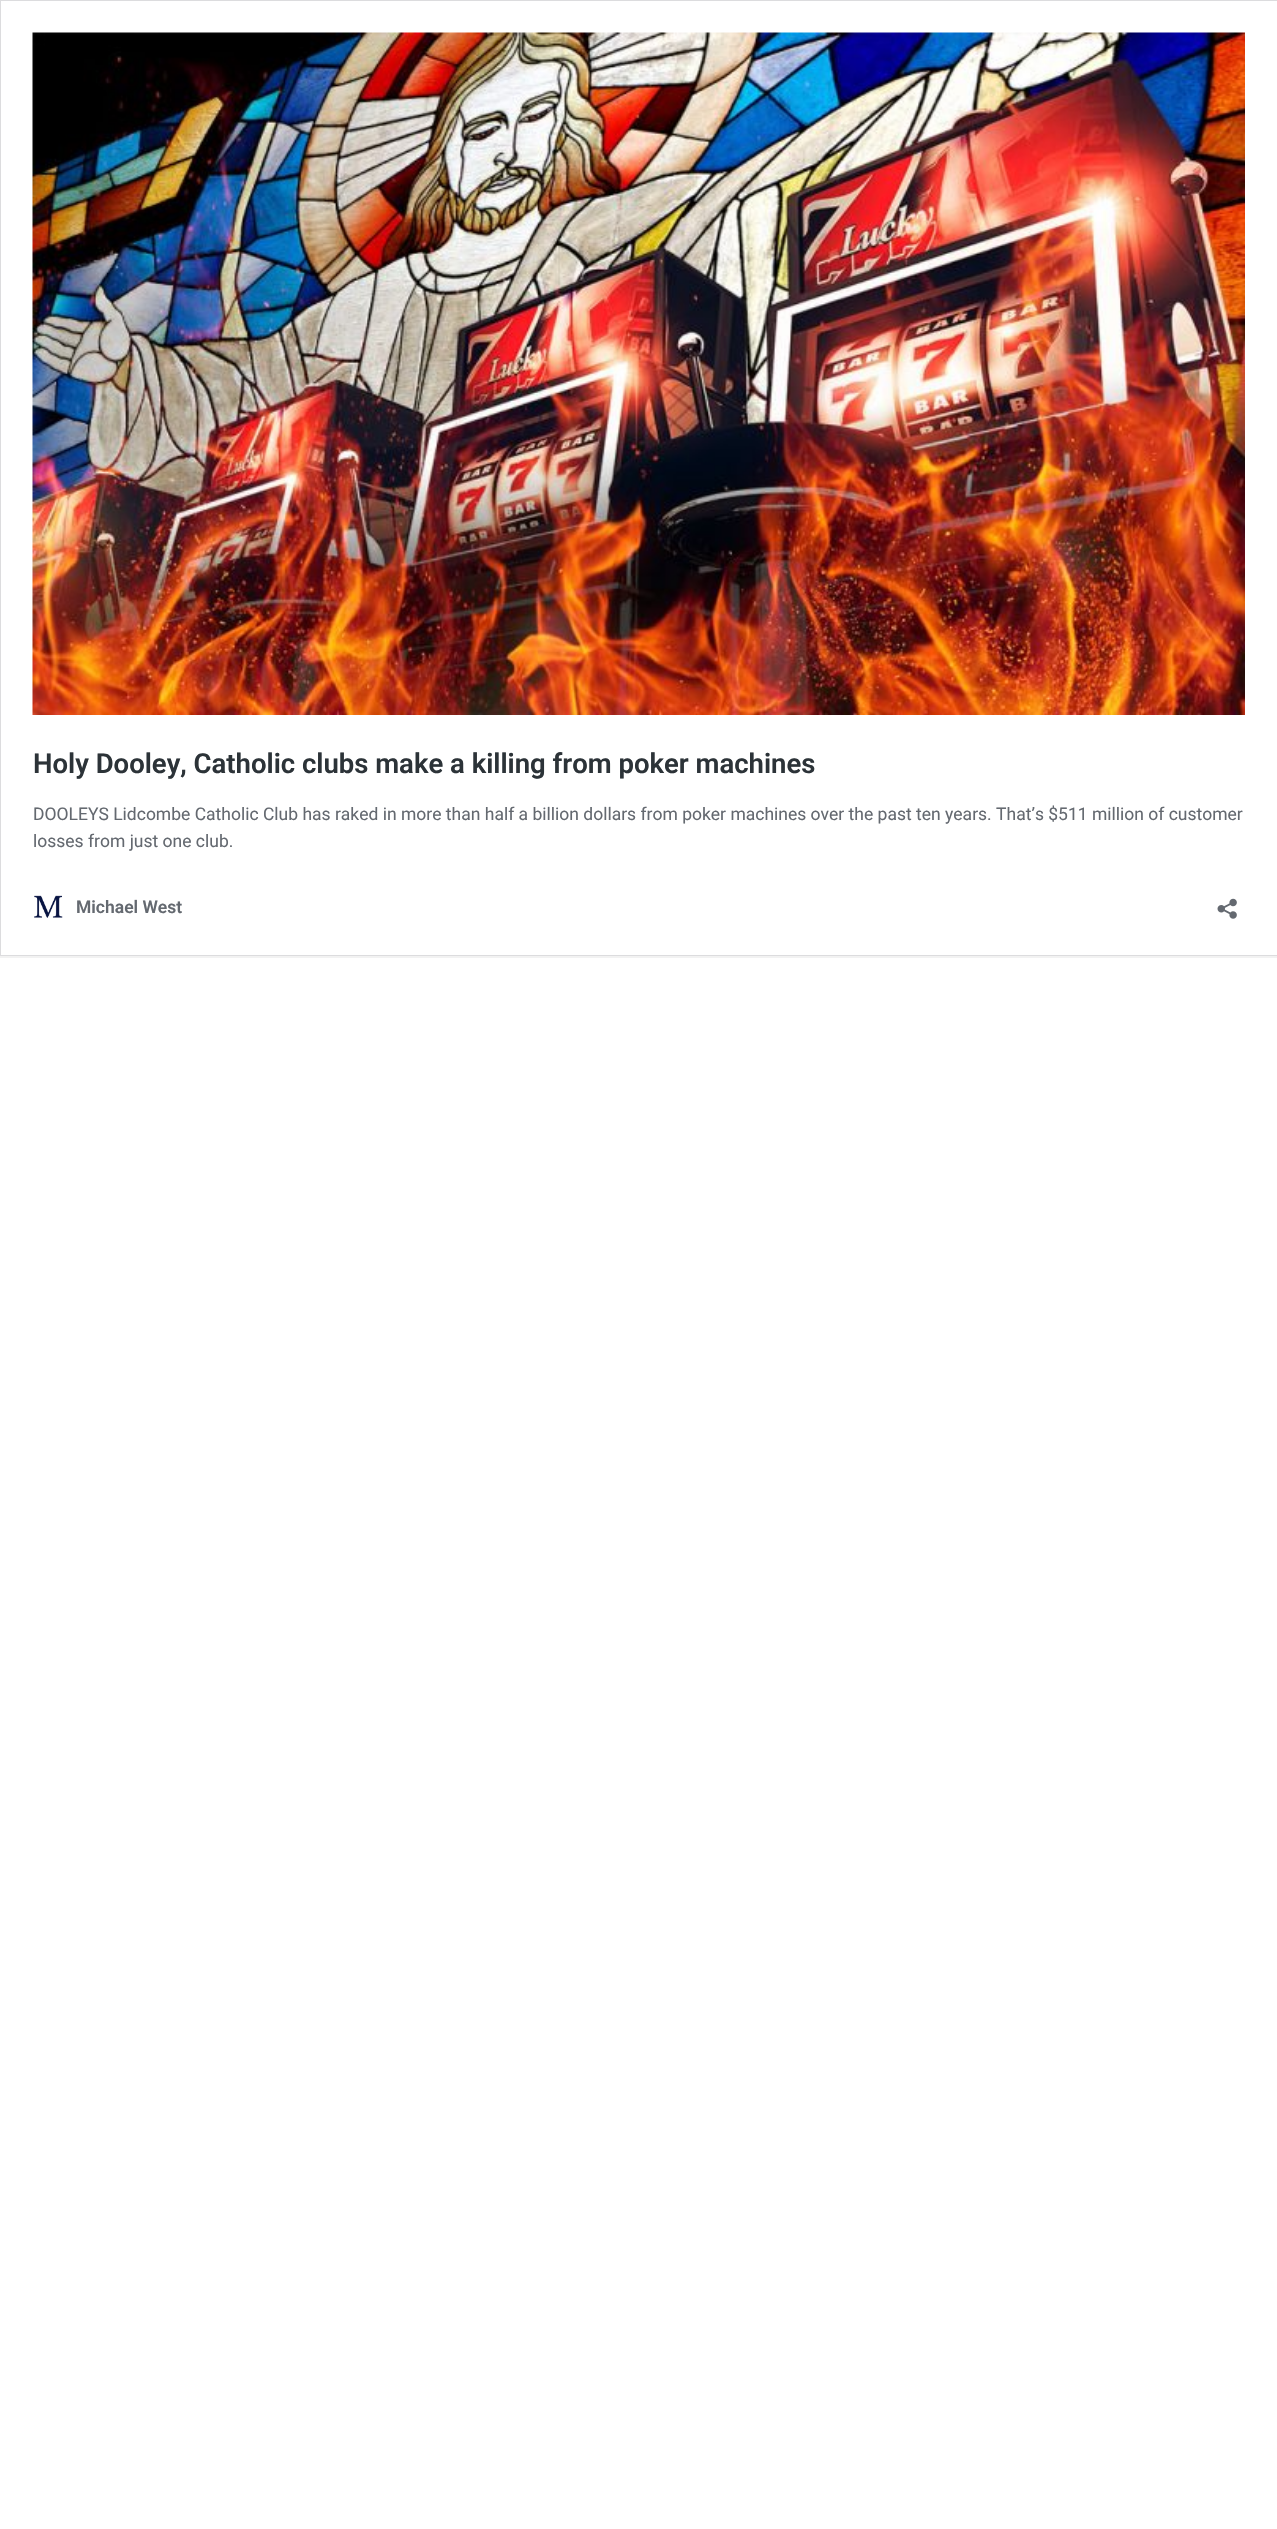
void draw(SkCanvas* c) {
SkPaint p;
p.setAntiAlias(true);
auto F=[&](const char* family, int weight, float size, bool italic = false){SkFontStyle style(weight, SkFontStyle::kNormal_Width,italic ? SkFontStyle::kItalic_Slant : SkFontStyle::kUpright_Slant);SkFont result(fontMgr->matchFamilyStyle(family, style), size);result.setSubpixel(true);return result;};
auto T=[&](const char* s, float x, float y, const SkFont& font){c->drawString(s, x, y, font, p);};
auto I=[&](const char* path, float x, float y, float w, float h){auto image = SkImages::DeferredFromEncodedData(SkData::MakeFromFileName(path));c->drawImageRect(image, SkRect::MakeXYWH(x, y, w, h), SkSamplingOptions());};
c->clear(0xffffffff);
c->save();
c->clipRect(SkRect::MakeXYWH(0,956,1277,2));
p.setColor(0x0d000000);
p.setMaskFilter(SkMaskFilter::MakeBlur(kNormal_SkBlurStyle, .5));
c->drawRect(SkRect::MakeXYWH(0,1,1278,957),p);
p.setMaskFilter(nullptr);
c->restore();
p.setStroke(true);
p.setStrokeWidth(1);
p.setColor(0xffdcdcde);
c->drawRect(SkRect::MakeXYWH(.5,.5,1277,955),p);
I("1.png",32,32,1213,683);
auto f1 = F("Roboto",600,27.5);
p.setStroke(false);
p.setColor(0xff2c3338);
T("Holy Dooley, Catholic clubs make a killing from poker machines",33,773,f1);
auto f2 = F("Roboto",400,17.5);
p.setColor(0xff646970);
T("DOOLEYS Lidcombe Catholic Club has raked in more than half a billion dollars from poker machines over the past ten years. That’s $511 million of customer",33,820,f2);
T("losses from just one club.",33,847,f2);
I("2.png",34,895,29,23);
auto f3 = F("Roboto",600,17.5);
T("Michael West",76,913,f3);
I("3.png",1217,898,20,21);
}
